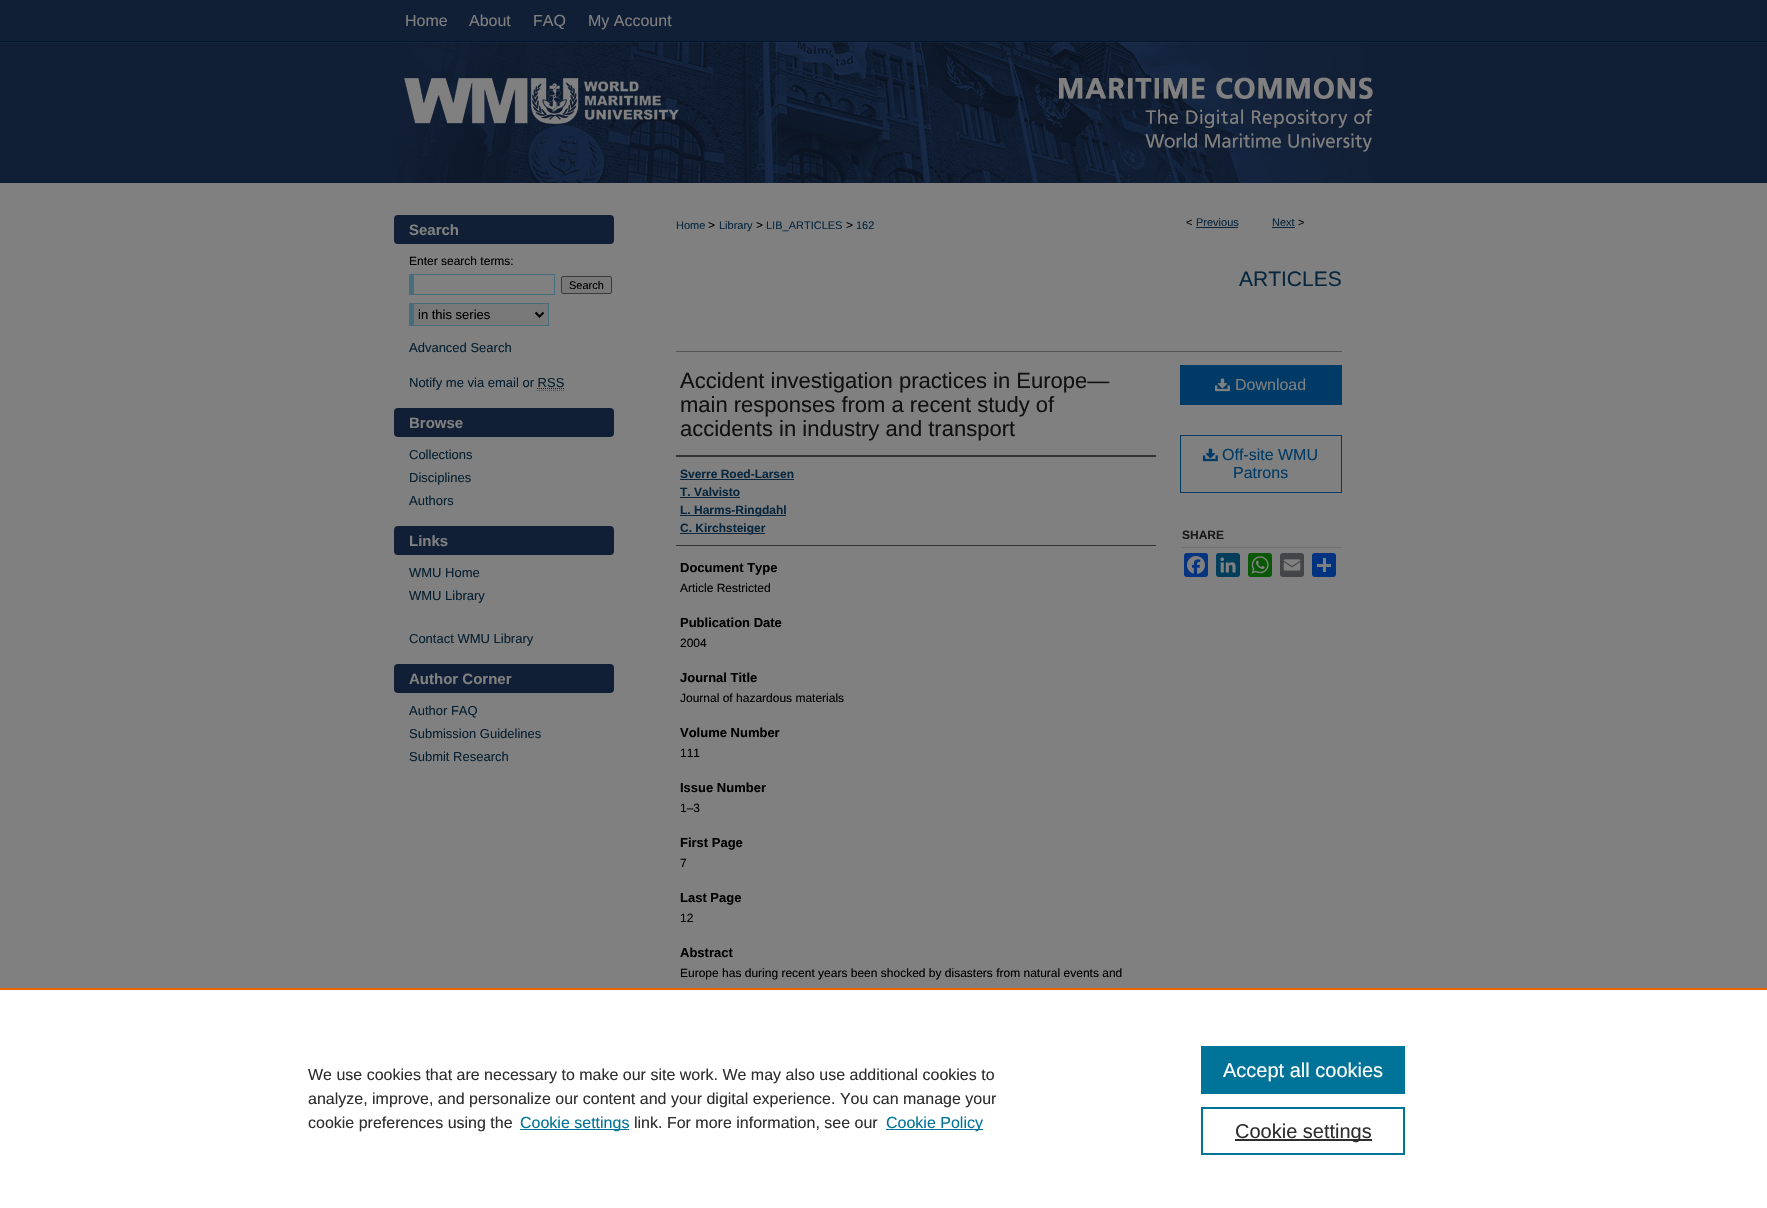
void draw(SkCanvas* c) {
SkPaint p;
p.setAntiAlias(true);
auto F=[&](const char* family, int weight, float size, bool italic = false){SkFontStyle style(weight, SkFontStyle::kNormal_Width,italic ? SkFontStyle::kItalic_Slant : SkFontStyle::kUpright_Slant);SkFont result(fontMgr->matchFamilyStyle(family, style), size);result.setSubpixel(true);return result;};
auto T=[&](const char* s, float x, float y, const SkFont& font){c->drawString(s, x, y, font, p);};
auto R=[&](float x, float y, float w, float h){c->drawRect(SkRect::MakeXYWH(x, y, w, h), p);};
auto Q=[&](float x, float y, float w, float h, float radius){c->drawRoundRect(SkRect::MakeXYWH(x, y, w, h), radius, radius, p);};
auto I=[&](const char* path, float x, float y, float w, float h){auto image = SkImages::DeferredFromEncodedData(SkData::MakeFromFileName(path));c->drawImageRect(image, SkRect::MakeXYWH(x, y, w, h), SkSamplingOptions());};
auto P=[&](const char* data, bool evenOdd = false){SkPath result = *SkParsePath::FromSVGString(data);if (evenOdd) result.setFillType(SkPathFillType::kEvenOdd);return result;};
c->clear(0xff808080);
I("1.png",0,0,1767,183);
auto f1 = F("Liberation Sans",400,16);
p.setColor(0xff808080);
T("Home",405,26,f1);
T("About",469,26,f1);
T("FAQ",533,26,f1);
T("My Account",588,26,f1);
I("2.png",394,41,980,142);
p.setColor(0xff111f36);
Q(394,215,220,29,4);
auto f2 = F("Liberation Sans",700,15);
p.setColor(0xff808080);
T("Search",409,235,f2);
auto f3 = F("Liberation Sans",400,12);
p.setColor(0xff000000);
T("Enter search terms:",409,265,f3);
p.setColor(0xff476c7c);
R(409,274,146,1);
R(554,274,1,21);
R(409,294,146,1);
R(409,274,5,21);
p.setColor(0xff787878);
c->drawRoundRect(SkRect::MakeXYWH(561.5,276.5,50,17),1.5,1.5,p);
p.setStroke(true);
p.setStrokeWidth(1);
p.setColor(0xff3b3b3b);
c->drawRoundRect(SkRect::MakeXYWH(561.5,276.5,50,17),1.5,1.5,p);
auto f4 = F("Liberation Sans",400,11);
p.setStroke(false);
p.setColor(0xff000000);
T("Search",569,289,f4);
p.setColor(0xff787878);
R(414,304,134,21);
p.setColor(0xff476c7c);
R(409,303,140,1);
R(548,303,1,23);
R(409,325,140,1);
R(409,303,5,23);
p.setStroke(true);
p.setStrokeWidth(2);
p.setColor(0xff000000);
c->drawPath(P("M535.5 312.5l4 4l4-4"),p);
auto f5 = F("Liberation Sans",400,13);
p.setStroke(false);
T("in this series",418,319,f5);
p.setColor(0xff072031);
T("Advanced Search",409,352,f5);
T("Notify me via email or RSS",409,387,f5);
p.setStroke(true);
p.setStrokeWidth(1);
p.setPathEffect(SkDashPathEffect::Make({{1,1}}, 0));
c->drawPath(P("M537 388.5h27"),p);
p.setPathEffect(nullptr);
p.setColor(0xff4d4d4d);
p.setPathEffect(SkDashPathEffect::Make({{1,1}}, 0));
c->drawPath(P("M537 390.5h27"),p);
p.setPathEffect(nullptr);
p.setStroke(false);
p.setColor(0xff111f36);
Q(394,408,220,29,4);
p.setColor(0xff808080);
T("Browse",409,428,f2);
p.setColor(0xff072031);
T("Collections",409,459,f5);
T("Disciplines",409,482,f5);
T("Authors",409,505,f5);
p.setColor(0xff111f36);
Q(394,526,220,29,4);
p.setColor(0xff808080);
T("Links",409,546,f2);
p.setColor(0xff072031);
T("WMU Home",409,577,f5);
T("WMU Library",409,600,f5);
T("Contact WMU Library",409,643,f5);
p.setColor(0xff111f36);
Q(394,664,220,29,4);
p.setColor(0xff808080);
T("Author Corner",409,684,f2);
p.setColor(0xff072031);
T("Author FAQ",409,715,f5);
T("Submission Guidelines",409,738,f5);
T("Submit Research",409,761,f5);
p.setColor(0xff08273e);
T("Home",676,229,f4);
p.setColor(0xff000000);
T(">",708,229,f3);
p.setColor(0xff08273e);
T("Library",719,229,f4);
p.setColor(0xff000000);
T(">",756,229,f3);
p.setColor(0xff08273e);
T("LIB_ARTICLES",766,229,f4);
p.setColor(0xff000000);
T(">",846,229,f3);
p.setColor(0xff08273e);
T("162",856,229,f4);
p.setColor(0xff111111);
T("<",1186,226,f4);
p.setColor(0xff08273e);
T("Previous",1196,226,f4);
R(1196,227,42,1);
T("Next",1272,226,f4);
R(1272,227,23,1);
p.setColor(0xff111111);
T(">",1298,226,f4);
auto f6 = F("Liberation Sans",400,21);
p.setColor(0xff08273e);
T("ARTICLES",1239,286,f6);
p.setColor(0xff555555);
R(676,351,666,1);
auto f7 = F("Liberation Sans",400,22);
p.setColor(0xff111111);
T("Accident investigation practices in Europe—",680,388,f7);
T("main responses from a recent study of",680,412,f7);
T("accidents in industry and transport",680,436,f7);
p.setColor(0xff333333);
R(676,455,480,2);
R(676,545,480,1);
auto f8 = F("Liberation Sans",700,12);
p.setColor(0xff08273e);
T("Sverre Roed-Larsen",680,478,f8);
R(680,479,114,1);
T("T. Valvisto",680,496,f8);
R(680,497,60,1);
R(680,515,106,1);
T("L. Harms-Ringdahl",680,514,f8);
R(680,533,85,1);
T("C. Kirchsteiger",680,532,f8);
auto f9 = F("Liberation Sans",700,13);
p.setColor(0xff000000);
T("Document Type",680,572,f9);
T("Article Restricted",680,592,f3);
T("Publication Date",680,627,f9);
T("2004",680,647,f3);
T("Journal Title",680,682,f9);
T("Journal of hazardous materials",680,702,f3);
T("Volume Number",680,737,f9);
T("111",680,757,f3);
T("Issue Number",680,792,f9);
T("1–3",680,812,f3);
T("First Page",680,847,f9);
T("7",680,867,f3);
T("Last Page",680,902,f9);
T("12",680,922,f3);
T("Abstract",680,957,f9);
T("Europe has during recent years been shocked by disasters from natural events and",680,977,f3);
p.setColor(0xff003a66);
R(1180,365,162,40);
I("3.png",1215,378,15,14);
p.setColor(0xff808080);
T("Download",1235,390,f1);
p.setStroke(true);
p.setColor(0xff003a66);
c->drawRect(SkRect::MakeXYWH(1180.5,435.5,161,57),p);
I("4.png",1203,448,15,14);
p.setStroke(false);
T("Off-site WMU",1222,460,f1);
T("Patrons",1233,478,f1);
p.setColor(0xff6f6f6f);
R(1182,547,160,1);
p.setColor(0xff1a1a1a);
T("SHARE",1182,539,f8);
p.setColor(0xff043380);
Q(1184,553,24,24,3);
I("5.png",1187,556,18,18);
p.setColor(0xff003e5b);
Q(1216,553,24,24,3);
I("6.png",1220,557,16,16);
p.setColor(0xff095805);
Q(1248,553,24,24,3);
I("7.png",1251,556,18,18);
p.setColor(0xff444548);
Q(1280,553,24,24,3);
I("8.png",1283,559,18,12);
p.setColor(0xff013380);
Q(1312,553,24,24,3);
p.setColor(0xff808080);
R(1323,558,3,14);
R(1317,564,14,3);
p.setColor(0xffffffff);
R(0,990,1767,218);
p.setColor(0xffeb6500);
R(0,988,1767,2);
p.setColor(0xff2e2e2e);
T("We use cookies that are necessary to make our site work. We may also use additional cookies to",308,1080,f1);
T("analyze, improve, and personalize our content and your digital experience. You can manage your",308,1104,f1);
T("cookie preferences using the",308,1128,f1);
p.setColor(0xff007398);
R(520,1129,109,1);
T("Cookie settings",520,1128,f1);
p.setColor(0xff2e2e2e);
T("link. For more information, see our",634,1128,f1);
p.setColor(0xff007398);
R(886,1129,97,1);
T("Cookie Policy",886,1128,f1);
R(1201,1046,204,48);
auto f10 = F("Liberation Sans",400,20);
p.setColor(0xffffffff);
T("Accept all cookies",1223,1077,f10);
p.setStroke(true);
p.setStrokeWidth(2);
p.setColor(0xff007398);
c->drawRect(SkRect::MakeXYWH(1202,1108,202,46),p);
p.setStroke(false);
p.setColor(0xff2e2e2e);
R(1235,1139,137,2);
T("Cookie settings",1235,1138,f10);
}
